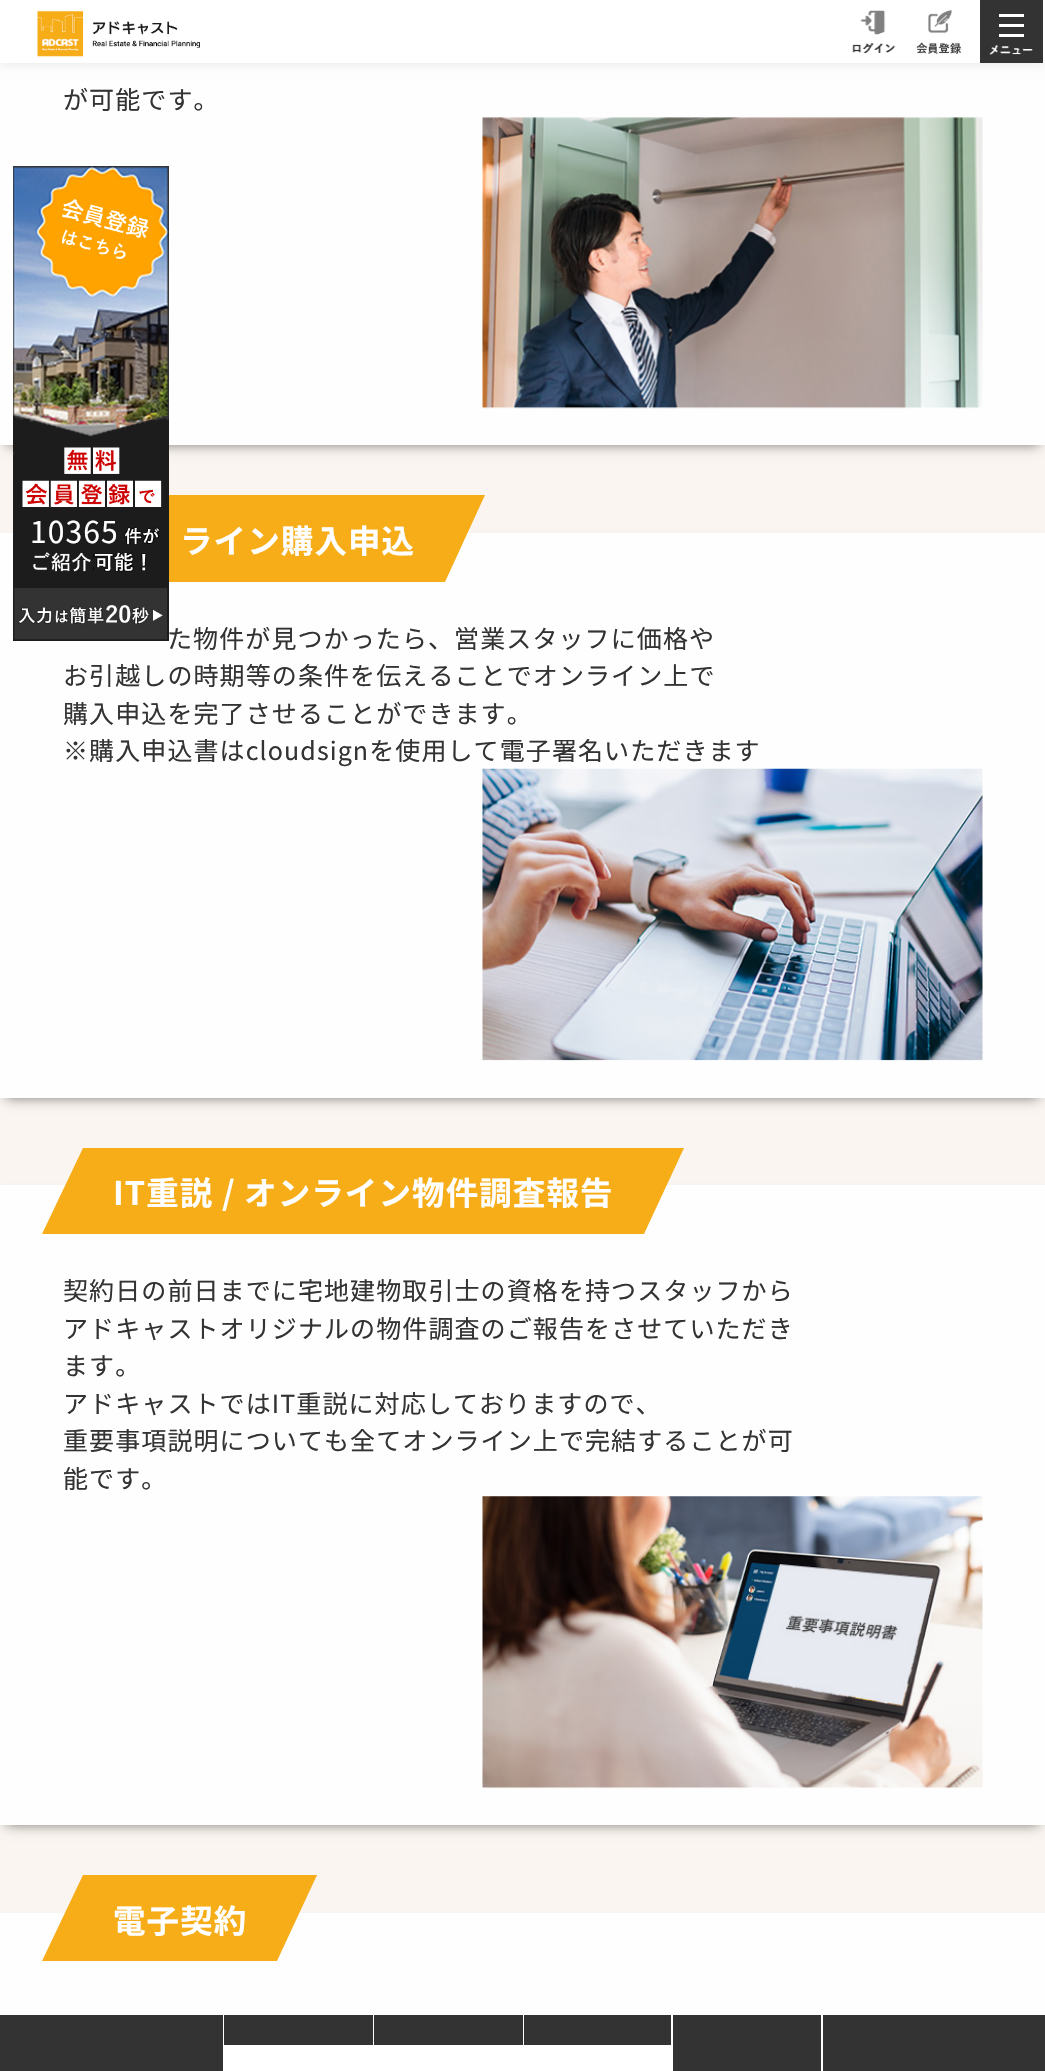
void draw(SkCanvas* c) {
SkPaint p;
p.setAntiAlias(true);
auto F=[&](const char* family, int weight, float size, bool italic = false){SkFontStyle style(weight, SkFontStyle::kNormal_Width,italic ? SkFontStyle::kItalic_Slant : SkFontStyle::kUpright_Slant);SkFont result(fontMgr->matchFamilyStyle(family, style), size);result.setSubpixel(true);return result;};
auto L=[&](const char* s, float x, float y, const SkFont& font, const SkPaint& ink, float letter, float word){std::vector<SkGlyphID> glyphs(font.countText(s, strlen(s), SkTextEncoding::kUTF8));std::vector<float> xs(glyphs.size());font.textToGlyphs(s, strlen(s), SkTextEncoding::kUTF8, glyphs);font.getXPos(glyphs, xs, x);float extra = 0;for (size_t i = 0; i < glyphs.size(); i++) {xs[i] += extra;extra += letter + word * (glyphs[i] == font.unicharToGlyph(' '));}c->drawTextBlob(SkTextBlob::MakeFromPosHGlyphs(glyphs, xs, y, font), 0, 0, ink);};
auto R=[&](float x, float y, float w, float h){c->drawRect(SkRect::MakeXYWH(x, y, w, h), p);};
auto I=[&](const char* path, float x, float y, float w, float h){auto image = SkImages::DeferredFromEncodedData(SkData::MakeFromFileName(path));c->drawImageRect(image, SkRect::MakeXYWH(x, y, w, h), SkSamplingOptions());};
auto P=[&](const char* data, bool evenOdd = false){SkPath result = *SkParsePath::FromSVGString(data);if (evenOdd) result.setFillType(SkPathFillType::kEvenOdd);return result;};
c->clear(0xfffaf5f0);
p.setColor(0x80000000);
p.setMaskFilter(SkMaskFilter::MakeBlur(kNormal_SkBlurStyle, 6));
c->drawRect(SkRect::MakeXYWH(6,-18,1033,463),p);
p.setMaskFilter(nullptr);
p.setColor(0xfffefefe);
R(0,63,1045,382);
p.setColor(0x1a000000);
p.setMaskFilter(SkMaskFilter::MakeBlur(kNormal_SkBlurStyle, 6));
c->drawRect(SkRect::MakeXYWH(0,0,1045,63),p);
p.setMaskFilter(nullptr);
p.setColor(0xffffffff);
R(0,0,1045,63);
I("1.png",37,10,163,47);
I("2.png",852,10,44,44);
I("3.png",916,10,45,44);
p.setColor(0xff333333);
R(980,0,63,63);
p.setColor(0xffffffff);
R(999,14,25,3);
R(999,24,25,3);
R(999,34,25,3);
I("4.png",989,45,44,10);
auto f1 = F("Noto Sans JP",400,25);
p.setColor(0xff333333);
L("が可能です。",63,109,f1,p,1.1,0);
I("5.png",482,117,501,292);
p.setColor(0x80000000);
p.setMaskFilter(SkMaskFilter::MakeBlur(kNormal_SkBlurStyle, 6));
c->drawRect(SkRect::MakeXYWH(6,545,1033,553),p);
p.setMaskFilter(nullptr);
p.setColor(0xfffefefe);
R(0,533,1045,565);
p.setColor(0xfff6ad18);
c->drawPath(P("M83 495h402l-40 87h-403z"),p);
auto f2 = F("Noto Sans JP",700,32.5);
p.setColor(0xffffffff);
L("ライン購入申込",180,553,f2,p,1.1,0);
p.setColor(0xff333333);
L("た物件が見つかったら、営業スタッフに価格や",167,648,f1,p,1.1,0);
L("お引越しの時期等の条件を伝えることでオンライン上で",63,685,f1,p,1.1,0);
L("購入申込を完了させることができます。",63,723,f1,p,1.1,0);
L("※購入申込書はcloudsignを使用して電子署名いただきます",63,760,f1,p,1.1,0);
I("6.png",482,768,501,293);
p.setColor(0x80000000);
p.setMaskFilter(SkMaskFilter::MakeBlur(kNormal_SkBlurStyle, 6));
c->drawRect(SkRect::MakeXYWH(6,1198,1033,627),p);
p.setMaskFilter(nullptr);
p.setColor(0xfffefefe);
R(0,1185,1045,640);
p.setColor(0xfff6ad18);
c->drawPath(P("M83 1148h601l-40 86h-602z"),p);
p.setColor(0xffffffff);
L("IT重説 / オンライン物件調査報告",113,1205,f2,p,1.1,0);
p.setColor(0xff333333);
L("契約日の前日までに宅地建物取引士の資格を持つスタッフから",63,1300,f1,p,1.1,0);
L("アドキャストオリジナルの物件調査のご報告をさせていただき",63,1338,f1,p,1.1,0);
L("ます。",63,1375,f1,p,1.1,0);
L("アドキャストではIT重説に対応しておりますので、",63,1413,f1,p,1.1,0);
L("重要事項説明についても全てオンライン上で完結することが可",63,1450,f1,p,1.1,0);
L("能です。",63,1488,f1,p,1.1,0);
I("7.png",482,1496,501,293);
p.setColor(0xfffefefe);
R(0,1913,1045,102);
p.setColor(0xfff6ad18);
c->drawPath(P("M83 1875h234l-40 86h-235z"),p);
p.setColor(0xffffffff);
L("電子契約",113,1933,f2,p,1.1,0);
I("8.png",13,166,156,475);
auto f3 = F("Noto Sans JP",400,30);
L("10365",30,543,f3,p,1.1,0);
p.setColor(0xff333333);
R(0,2015,1045,56);
p.setColor(0xffffffff);
R(223,2015,600,56);
p.setColor(0xff333333);
R(224,2015,149,30);
R(374,2015,149,30);
R(524,2015,147,30);
R(673,2015,148,56);
}
